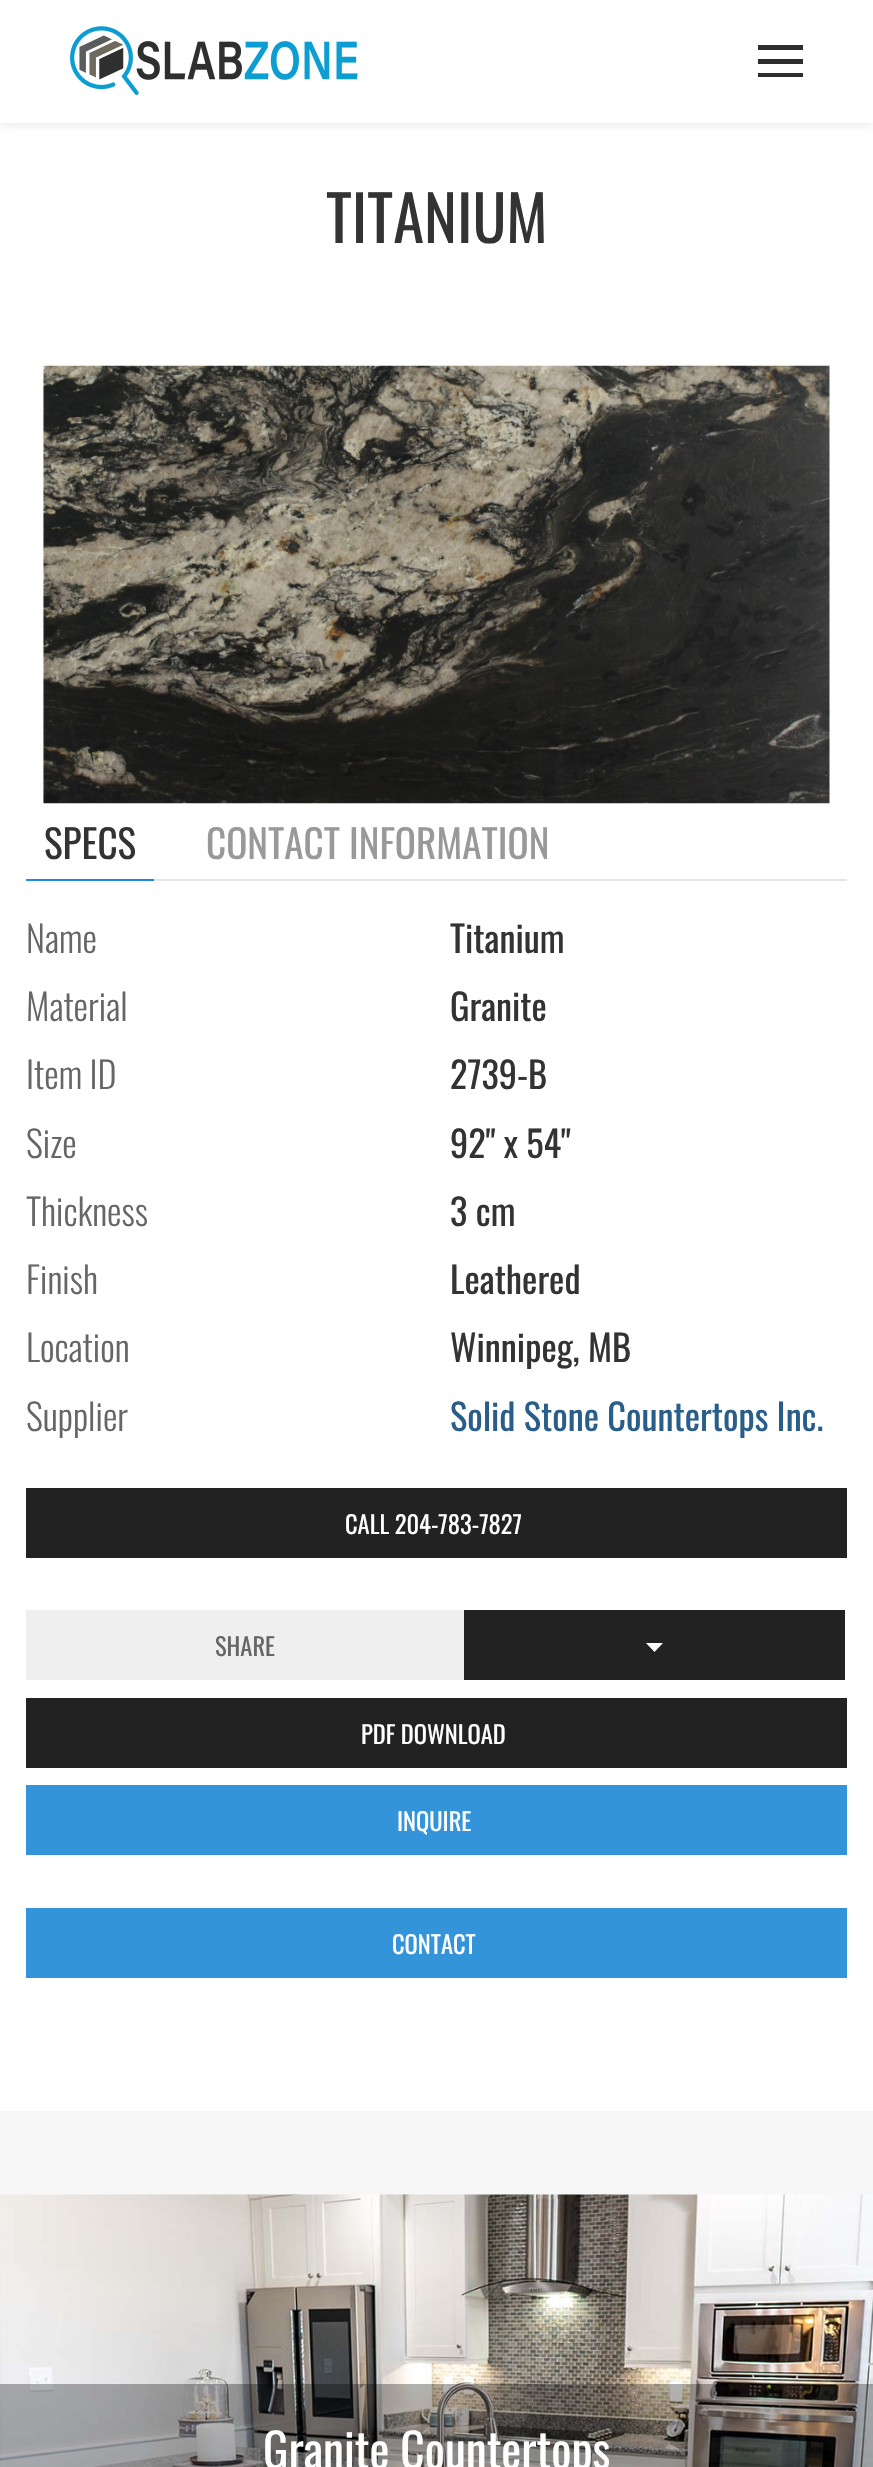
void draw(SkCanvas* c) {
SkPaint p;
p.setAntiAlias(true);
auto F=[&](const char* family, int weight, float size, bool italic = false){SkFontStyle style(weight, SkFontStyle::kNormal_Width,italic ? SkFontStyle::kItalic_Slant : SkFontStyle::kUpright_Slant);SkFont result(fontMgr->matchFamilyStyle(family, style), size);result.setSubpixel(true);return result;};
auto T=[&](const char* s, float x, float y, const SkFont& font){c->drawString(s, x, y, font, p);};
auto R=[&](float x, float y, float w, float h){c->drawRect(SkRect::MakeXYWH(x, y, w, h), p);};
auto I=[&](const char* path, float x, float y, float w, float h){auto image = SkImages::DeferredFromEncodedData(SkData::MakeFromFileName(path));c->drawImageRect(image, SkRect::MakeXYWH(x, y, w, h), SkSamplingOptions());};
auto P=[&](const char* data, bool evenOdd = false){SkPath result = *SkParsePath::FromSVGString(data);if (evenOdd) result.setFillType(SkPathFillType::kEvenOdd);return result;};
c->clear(0xffffffff);
c->save();
c->clipPath(P("M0 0h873v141h-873zm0 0h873v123h-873z",true),true);
p.setColor(0x33999999);
p.setMaskFilter(SkMaskFilter::MakeBlur(kNormal_SkBlurStyle, 4.5));
c->drawRect(SkRect::MakeXYWH(0,4,873,122),p);
p.setMaskFilter(nullptr);
c->restore();
p.setColor(0xccffffff);
R(0,122,873,1);
I("1.png",70,26,288,69);
p.setColor(0xff2d2d2d);
R(758,59,45,5);
R(758,45,45,5);
R(758,73,45,4);
auto f1 = F("Oswald",400,62.5);
p.setColor(0xff333333);
T("TITANIUM",326,243,f1);
I("2.png",42,365,788,439);
p.setColor(0xff1e87f0);
R(26,879,128,2);
auto f2 = F("Oswald",400,39.25);
p.setColor(0xff333333);
T("SPECS",44,859,f2);
p.setColor(0xff999999);
T("CONTACT INFORMATION",206,859,f2);
p.setColor(0xffe5e5e5);
R(154,879,693,2);
auto f3 = F("Oswald",300,36.4);
p.setColor(0xff666666);
T("Name",26,953,f3);
auto f4 = F("Oswald",400,36.4);
p.setColor(0xff333333);
T("Titanium",450,953,f4);
p.setColor(0xff666666);
T("Material",26,1021,f3);
p.setColor(0xff333333);
T("Granite",450,1021,f4);
p.setColor(0xff666666);
T("Item ID",26,1089,f3);
p.setColor(0xff333333);
T("2739-B",450,1089,f4);
p.setColor(0xff666666);
T("Size",26,1158,f3);
p.setColor(0xff333333);
T("92\" x 54\"",450,1158,f4);
p.setColor(0xff666666);
T("Thickness",26,1226,f3);
p.setColor(0xff333333);
T("3 cm",450,1226,f4);
p.setColor(0xff666666);
T("Finish",26,1294,f3);
p.setColor(0xff333333);
T("Leathered",450,1294,f4);
p.setColor(0xff666666);
T("Location",26,1362,f3);
p.setColor(0xff333333);
T("Winnipeg, MB",450,1362,f4);
p.setColor(0xff666666);
T("Supplier",26,1431,f3);
p.setColor(0xff295d8a);
T("Solid Stone Countertops Inc.",450,1431,f4);
p.setColor(0xff222222);
R(26,1488,821,70);
auto f5 = F("Oswald",400,24.5);
p.setColor(0xffffffff);
T("CALL 204-783-7827",345,1534,f5);
p.setColor(0xffefefef);
R(26,1610,438,70);
p.setColor(0xff666666);
T("SHARE",215,1656,f5);
p.setColor(0xff222222);
R(464,1610,381,70);
p.setColor(0xffffffff);
c->drawPath(P("M646 1643h17l-8.5 9z"),p);
p.setColor(0xff222222);
R(26,1698,821,70);
p.setColor(0xffffffff);
T("PDF DOWNLOAD",361,1744,f5);
p.setColor(0xff3394d9);
R(26,1785,821,70);
p.setColor(0xffffffff);
T("INQUIRE",397,1831,f5);
p.setColor(0xff3394d9);
R(26,1908,821,70);
p.setColor(0xffffffff);
T("CONTACT",392,1954,f5);
p.setColor(0xfff7f7f7);
R(0,2111,873,84);
I("3.png",0,2194,873,273);
p.setColor(0x4d000000);
R(0,2384,873,83);
auto f6 = F("Oswald",400,47.5);
p.setColor(0xffffffff);
T("Granite Countertops",263,2469,f6);
}
